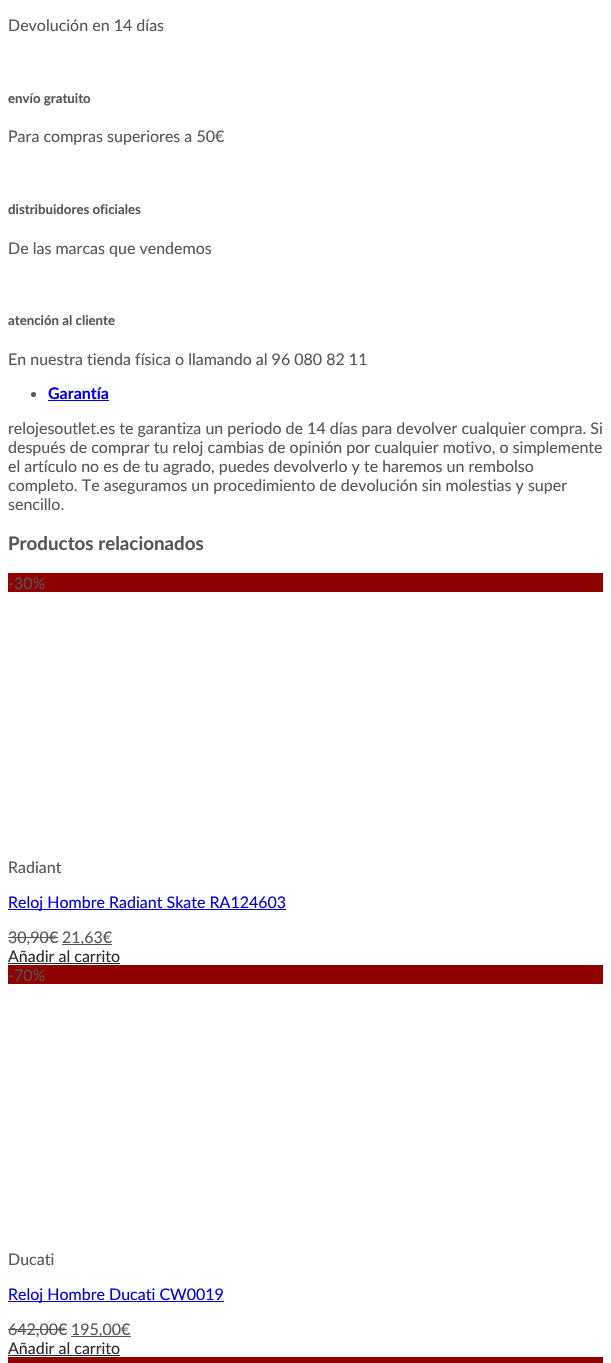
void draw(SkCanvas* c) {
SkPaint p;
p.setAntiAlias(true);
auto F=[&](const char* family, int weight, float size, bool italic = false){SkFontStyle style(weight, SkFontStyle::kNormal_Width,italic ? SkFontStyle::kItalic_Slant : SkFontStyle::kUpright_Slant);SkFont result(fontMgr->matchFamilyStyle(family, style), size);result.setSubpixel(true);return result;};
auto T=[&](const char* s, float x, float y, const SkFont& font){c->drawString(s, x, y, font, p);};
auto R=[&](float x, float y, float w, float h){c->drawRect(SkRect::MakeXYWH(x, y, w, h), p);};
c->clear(0xffffffff);
auto f1 = F("Lato",400,16);
p.setColor(0xff565656);
T("Devolución en 14 días",8,31,f1);
auto f2 = F("Lato",700,13.25);
T("envío gratuito",8,103,f2);
T("Para compras superiores a 50€",8,142,f1);
T("distribuidores oficiales",8,214,f2);
T("De las marcas que vendemos",8,254,f1);
T("atención al cliente",8,325,f2);
T("En nuestra tienda física o llamando al 96 080 82 11",8,365,f1);
c->drawCircle(33.5,394.5,2.5,p);
auto f3 = F("Lato",700,16);
p.setColor(0xff0000ee);
T("Garantía",48,399,f3);
R(48,400,61,1);
p.setColor(0xff565656);
T("relojesoutlet.es te garantiza un periodo de 14 días para devolver cualquier compra. Si",8,434,f1);
T("después de comprar tu reloj cambias de opinión por cualquier motivo, o simplemente",8,453,f1);
T("el artículo no es de tu agrado, puedes devolverlo y te haremos un rembolso",8,472,f1);
T("completo. Te aseguramos un procedimiento de devolución sin molestias y super",8,491,f1);
T("sencillo.",8,510,f1);
auto f4 = F("Lato",700,18.75);
T("Productos relacionados",8,550,f4);
p.setColor(0xff8f0000);
R(8,573,595,19);
p.setColor(0xff565656);
T("-30%",8,589,f1);
T("Radiant",8,873,f1);
p.setColor(0xff0000ee);
R(8,909,278,1);
T("Reloj Hombre Radiant Skate RA124603",8,908,f1);
p.setColor(0xff565656);
T("30,90",8,943,f1);
R(8,937,41,1);
T("€",49,943,f1);
R(49,937,9,1);
R(62,944,50,1);
T("21,63€",62,943,f1);
p.setColor(0xff2b2b2b);
T("Añadir al carrito",8,962,f1);
R(8,963,112,1);
p.setColor(0xff8f0000);
R(8,965,595,19);
p.setColor(0xff565656);
T("-70%",8,981,f1);
T("Ducati",8,1265,f1);
p.setColor(0xff0000ee);
R(8,1301,216,1);
T("Reloj Hombre Ducati CW0019",8,1300,f1);
p.setColor(0xff565656);
T("642,00€",8,1335,f1);
R(8,1329,59,1);
R(71,1336,60,1);
T("195,00€",71,1335,f1);
p.setColor(0xff2b2b2b);
T("Añadir al carrito",8,1354,f1);
R(8,1355,112,1);
p.setColor(0xff8f0000);
R(8,1357,595,6);
}
